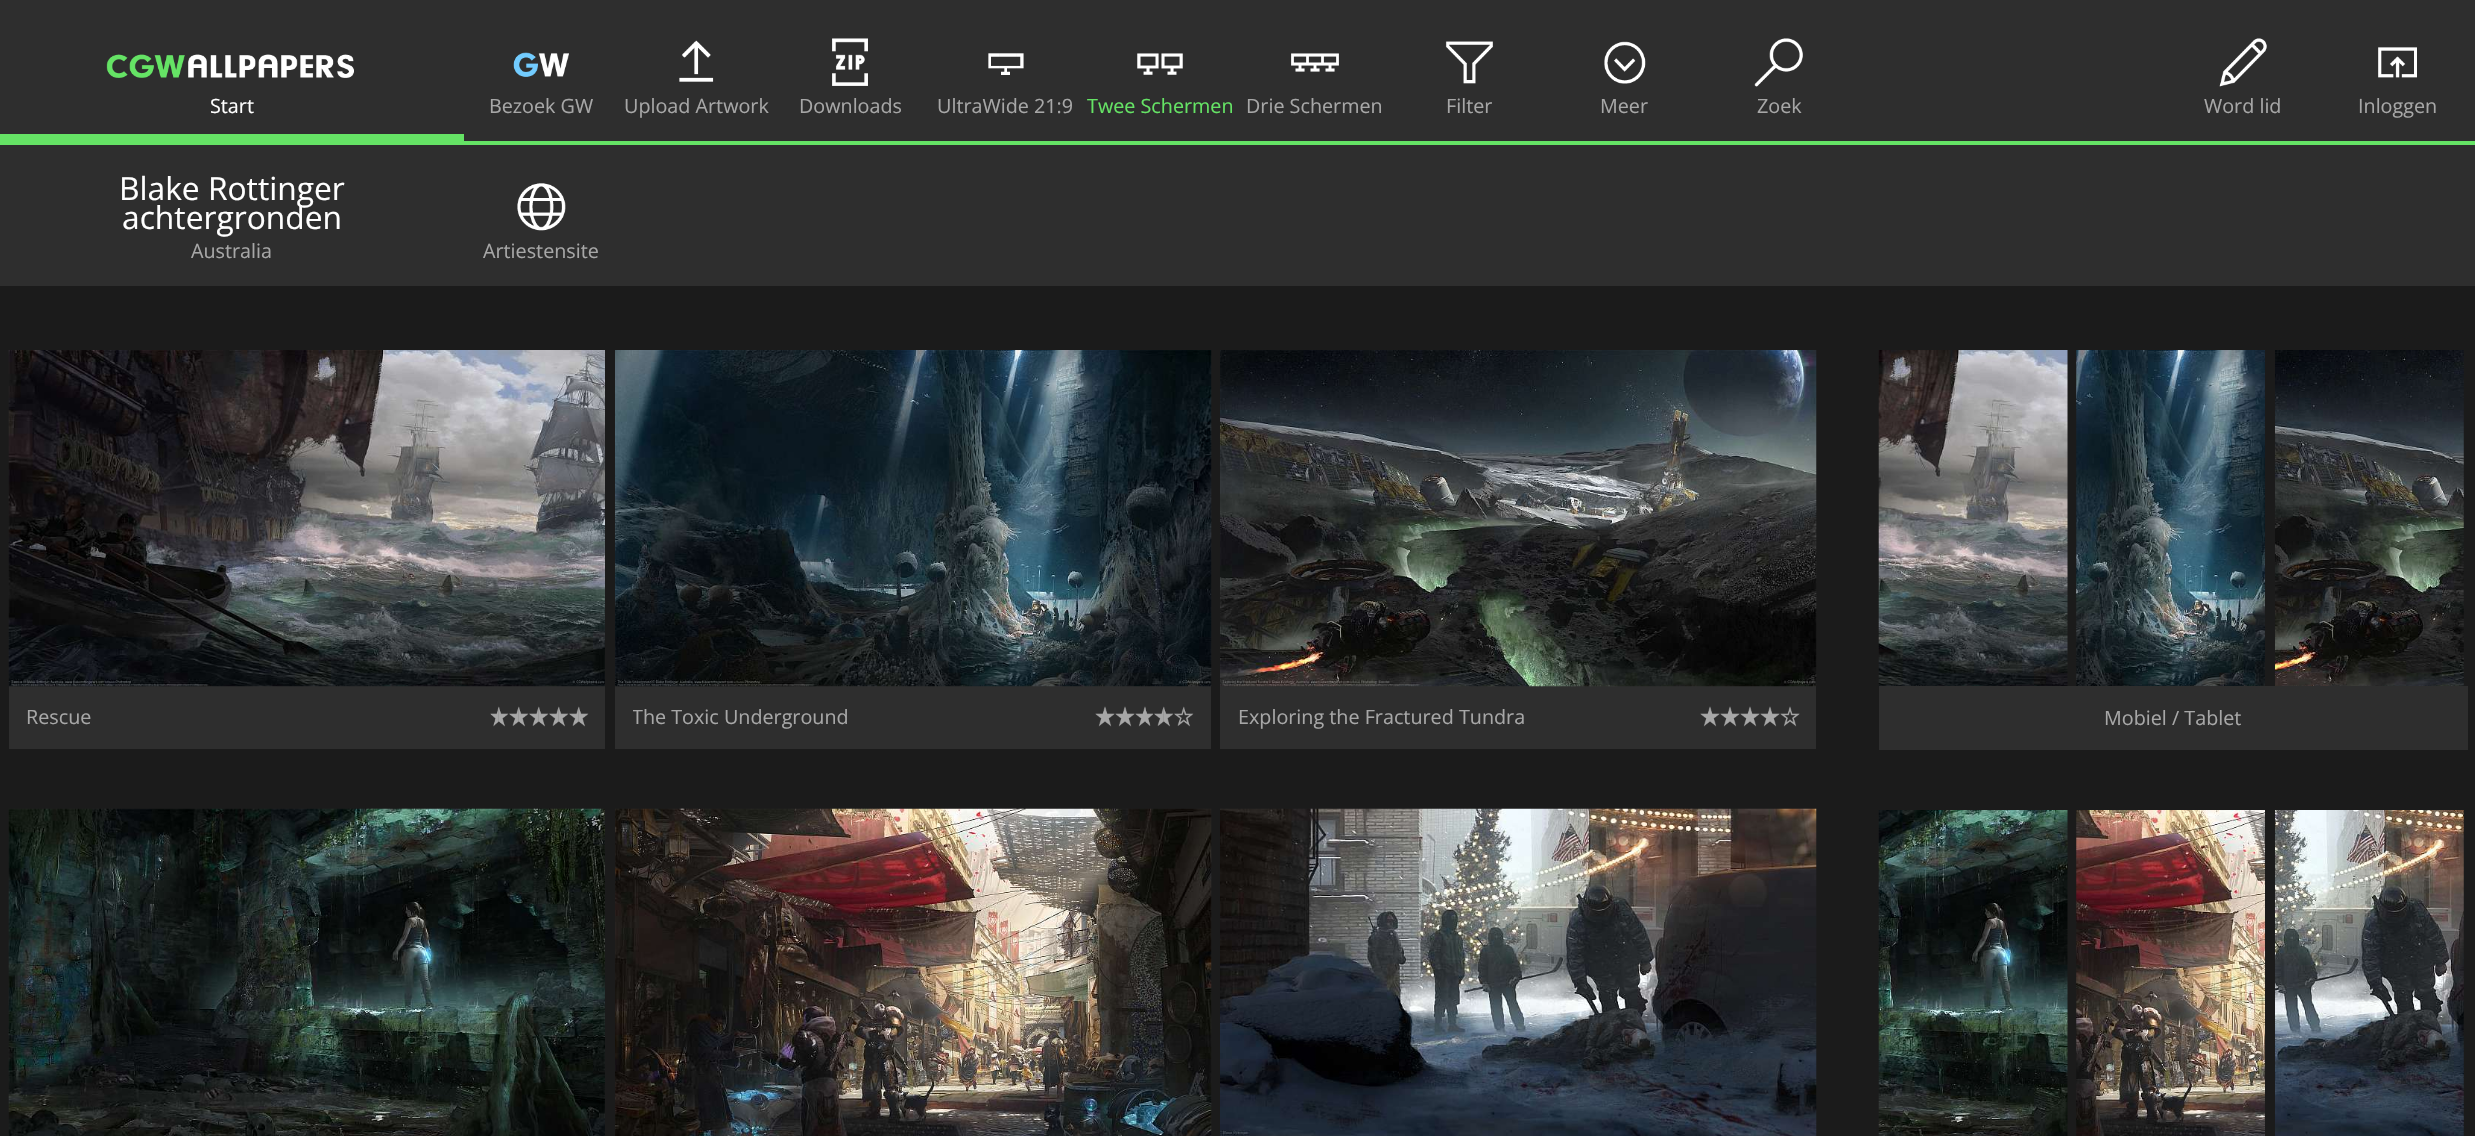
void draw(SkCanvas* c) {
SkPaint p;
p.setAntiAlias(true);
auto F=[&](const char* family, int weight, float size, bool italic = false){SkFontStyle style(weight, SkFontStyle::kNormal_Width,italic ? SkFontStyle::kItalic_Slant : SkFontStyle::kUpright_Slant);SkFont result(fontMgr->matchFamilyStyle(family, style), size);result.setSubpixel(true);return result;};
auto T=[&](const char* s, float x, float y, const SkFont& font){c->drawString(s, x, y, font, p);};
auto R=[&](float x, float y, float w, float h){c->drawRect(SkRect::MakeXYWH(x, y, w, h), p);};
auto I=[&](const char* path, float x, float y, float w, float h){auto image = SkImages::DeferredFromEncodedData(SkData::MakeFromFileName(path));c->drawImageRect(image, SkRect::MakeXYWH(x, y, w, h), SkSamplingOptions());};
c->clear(0xff1b1b1b);
p.setColor(0xff2e2e2e);
R(0,0,2475,141);
p.setColor(0xff65e365);
R(0,141,2475,4);
R(0,134,464,7);
I("1.png",106,54,248,24);
auto f1 = F("Open Sans",400,19.75);
p.setColor(0xffffffff);
T("Start",210,113,f1);
I("2.png",513,52,56,25);
p.setColor(0xffa7a7a7);
T("Bezoek GW",489,113,f1);
I("3.png",679,40,35,42);
T("Upload Artwork",624,113,f1);
I("4.png",832,38,36,48);
T("Downloads",799,113,f1);
I("5.png",988,53,36,22);
T("UltraWide 21:9",937,113,f1);
I("6.png",1137,53,46,22);
p.setColor(0xff65e365);
T("Twee Schermen",1087,113,f1);
I("7.png",1291,53,48,19);
p.setColor(0xffa7a7a7);
T("Drie Schermen",1246,113,f1);
I("8.png",1445,41,48,43);
T("Filter",1446,113,f1);
I("9.png",1604,41,42,43);
T("Meer",1600,113,f1);
I("10.png",1754,38,49,49);
T("Zoek",1757,113,f1);
I("11.png",2219,38,48,49);
T("Word lid",2204,113,f1);
I("12.png",2378,47,39,31);
T("Inloggen",2358,113,f1);
p.setColor(0xff2e2e2e);
R(0,145,2475,141);
auto f2 = F("Open Sans",400,31.75);
p.setColor(0xffffffff);
T("Blake Rottinger",119,200,f2);
T("achtergronden",122,229,f2);
p.setColor(0xffa7a7a7);
T("Australia",191,258,f1);
I("13.png",517,183,49,48);
T("Artiestensite",483,258,f1);
p.setColor(0xff2e2e2e);
R(9,686,596,63);
I("14.png",8,350,597,337);
p.setColor(0xffa7a7a7);
T("Rescue",26,724,f1);
I("15.png",490,706,9,21);
I("16.png",498,707,11,20);
I("17.png",509,706,10,20);
I("16.png",518,707,11,20);
I("17.png",529,706,10,20);
I("16.png",538,707,11,20);
I("17.png",549,706,10,20);
I("16.png",558,707,11,20);
I("17.png",569,706,10,20);
I("16.png",578,707,11,20);
p.setColor(0xff2e2e2e);
R(615,686,596,63);
I("18.png",615,350,597,337);
c->save();
c->clipRect(SkRect::MakeXYWH(633,703,446,27));
p.setColor(0xffa7a7a7);
T("The Toxic Underground",632,724,f1);
c->restore();
I("19.png",1095,706,10,21);
I("20.png",1105,706,10,21);
I("19.png",1115,706,10,21);
I("20.png",1125,706,10,21);
I("19.png",1135,706,10,21);
I("21.png",1145,706,9,20);
I("17.png",1154,706,10,20);
I("16.png",1163,707,11,20);
I("22.png",1174,706,10,20);
I("23.png",1183,707,11,20);
p.setColor(0xff2e2e2e);
R(1220,686,596,63);
I("24.png",1220,350,597,337);
p.setColor(0xffa7a7a7);
T("Exploring the Fractured Tundra",1238,724,f1);
I("19.png",1700,706,10,21);
I("20.png",1710,706,10,21);
I("19.png",1720,706,10,21);
I("20.png",1730,706,10,21);
I("19.png",1740,706,10,21);
I("20.png",1750,706,10,21);
I("19.png",1760,706,10,21);
I("20.png",1770,706,10,21);
I("25.png",1780,706,10,21);
I("26.png",1790,706,10,21);
I("27.png",8,808,597,328);
I("28.png",615,808,597,328);
I("29.png",1220,808,597,328);
I("30.png",1878,350,190,337);
I("31.png",2076,350,189,336);
I("32.png",2275,350,189,336);
p.setColor(0xff2e2e2e);
R(1879,686,589,64);
p.setColor(0xffa7a7a7);
T("Mobiel / Tablet",2104,725,f1);
I("33.png",1878,810,190,326);
I("34.png",2076,810,189,326);
I("35.png",2275,810,189,326);
}
